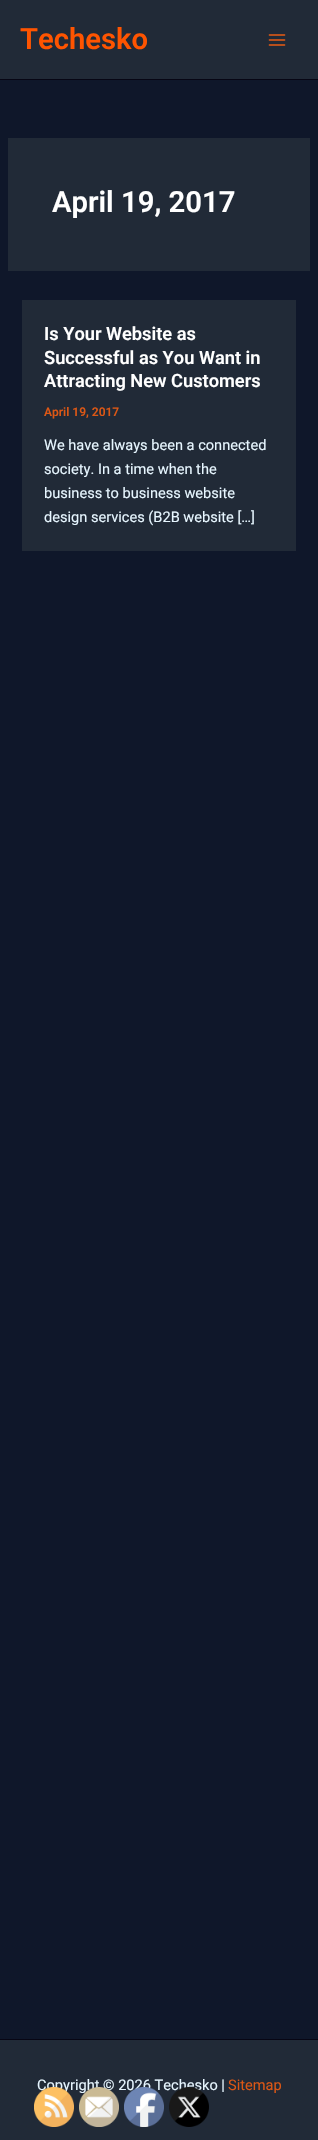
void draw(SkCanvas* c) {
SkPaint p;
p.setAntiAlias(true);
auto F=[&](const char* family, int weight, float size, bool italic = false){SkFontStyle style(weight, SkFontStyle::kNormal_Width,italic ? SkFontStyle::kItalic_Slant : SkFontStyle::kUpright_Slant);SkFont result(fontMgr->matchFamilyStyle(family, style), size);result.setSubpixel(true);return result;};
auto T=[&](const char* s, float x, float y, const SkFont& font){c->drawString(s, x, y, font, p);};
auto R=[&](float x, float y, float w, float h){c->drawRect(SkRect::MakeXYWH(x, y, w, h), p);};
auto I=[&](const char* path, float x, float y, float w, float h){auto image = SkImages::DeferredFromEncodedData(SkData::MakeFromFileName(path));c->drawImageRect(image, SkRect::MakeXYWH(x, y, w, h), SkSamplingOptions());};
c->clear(0xff0f172a);
p.setColor(0xff212a37);
R(0,0,318,79);
p.setColor(0xff070614);
R(0,79,318,1);
auto f1 = F("Roboto",600,29.25);
p.setColor(0xffff5400);
T("Techesko",20,49,f1);
I("1.png",268,34,18,12);
p.setColor(0xff212a37);
R(8,138,302,133);
p.setColor(0xffffffff);
T("April 19, 2017",52,212,f1);
p.setColor(0xff212a37);
R(22,300,274,251);
auto f2 = F("Roboto",600,18.25);
p.setColor(0xffffffff);
T("Is Your Website as",44,340,f2);
T("Successful as You Want in",44,364,f2);
T("Attracting New Customers",44,387,f2);
auto f3 = F("Roboto",600,12);
p.setColor(0xffdc5715);
T("April 19, 2017",44,416,f3);
auto f4 = F("Roboto",400,14.6);
p.setColor(0xffe7f6ff);
T("We have always been a connected",44,450,f4);
T("society. In a time when the",44,474,f4);
T("business to business website",44,498,f4);
T("design services (B2B website […]",44,522,f4);
p.setColor(0xff212a37);
R(0,2040,318,100);
p.setColor(0xff070614);
R(0,2039,318,1);
p.setColor(0xffe7f6ff);
T("Copyright © 2026 Techesko |",37,2090,f4);
p.setColor(0xffdc5715);
T("Sitemap",228,2090,f4);
I("2.png",34,2087,40,40);
I("3.png",79,2087,40,40);
I("4.png",124,2087,40,40);
I("5.png",169,2087,40,40);
}
